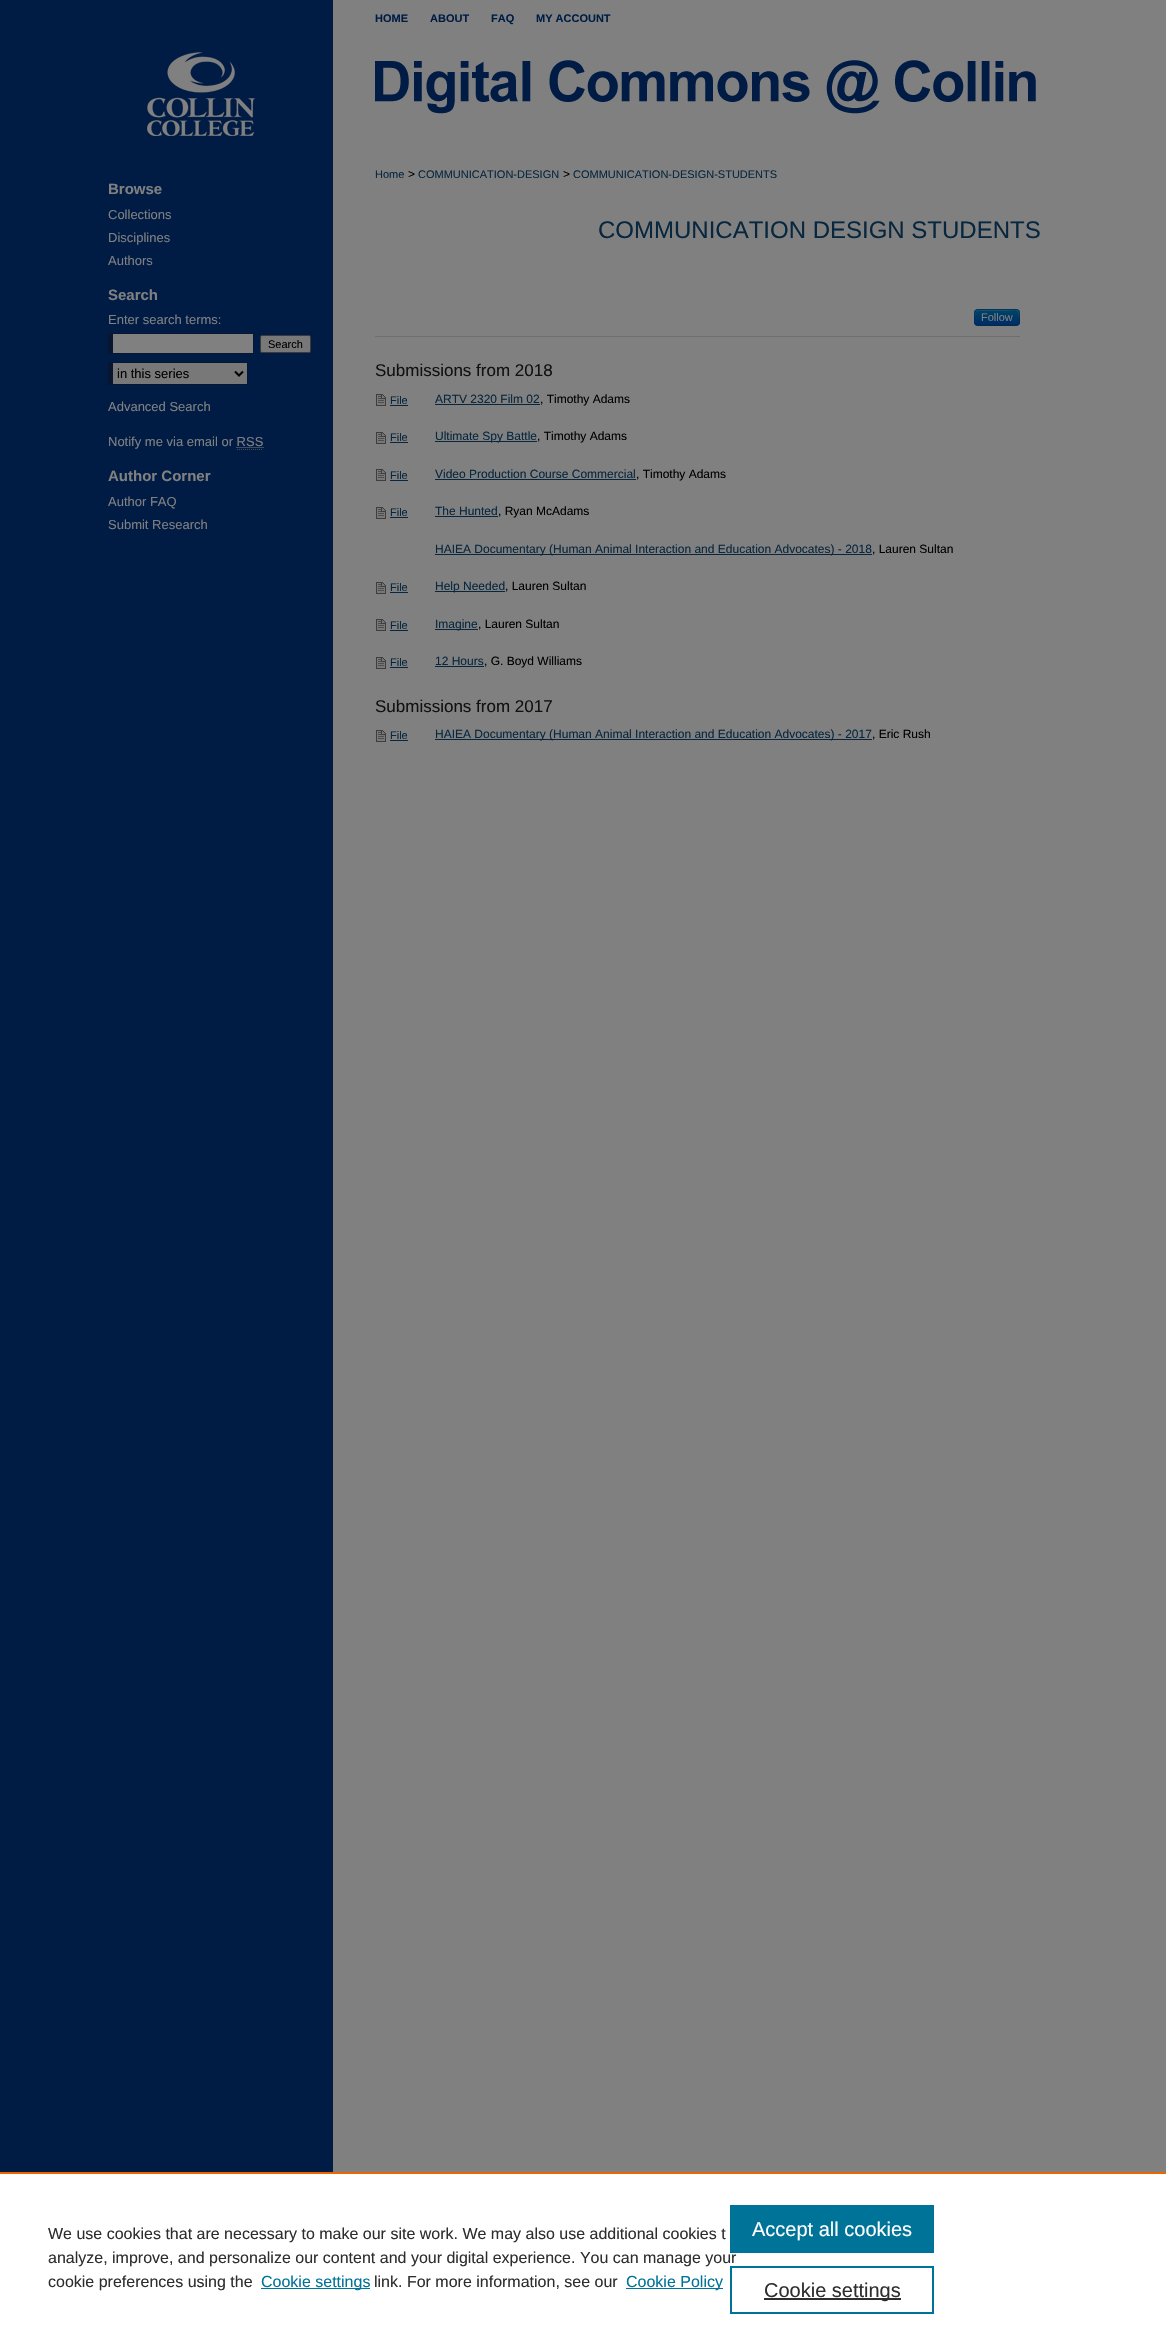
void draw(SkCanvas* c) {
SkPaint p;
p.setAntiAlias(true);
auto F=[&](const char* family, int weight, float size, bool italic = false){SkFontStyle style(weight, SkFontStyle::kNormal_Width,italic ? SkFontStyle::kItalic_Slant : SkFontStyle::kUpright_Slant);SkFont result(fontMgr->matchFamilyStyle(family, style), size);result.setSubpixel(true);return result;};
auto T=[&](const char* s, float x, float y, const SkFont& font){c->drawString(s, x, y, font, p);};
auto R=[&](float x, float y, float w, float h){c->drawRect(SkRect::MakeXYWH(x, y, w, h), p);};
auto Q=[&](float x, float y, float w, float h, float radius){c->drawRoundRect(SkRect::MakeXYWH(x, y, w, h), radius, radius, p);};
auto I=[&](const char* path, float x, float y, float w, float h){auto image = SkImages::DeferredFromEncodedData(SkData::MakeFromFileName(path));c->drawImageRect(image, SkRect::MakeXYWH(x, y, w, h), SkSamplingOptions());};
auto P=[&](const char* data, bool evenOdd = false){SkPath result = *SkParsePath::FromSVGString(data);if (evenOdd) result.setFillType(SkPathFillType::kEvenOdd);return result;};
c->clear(0xff808080);
p.setColor(0xff001c45);
R(0,0,93,2172);
R(93,0,240,36);
auto f1 = F("Liberation Sans",700,11);
T("HOME",375,22,f1);
T("ABOUT",430,22,f1);
T("FAQ",491,22,f1);
T("MY ACCOUNT",536,22,f1);
I("1.png",93,36,943,112);
R(93,148,240,2024);
auto f2 = F("Liberation Sans",700,15);
p.setColor(0xff808080);
T("Browse",108,194,f2);
auto f3 = F("Liberation Sans",400,13);
T("Collections",108,219,f3);
T("Disciplines",108,242,f3);
T("Authors",108,265,f3);
T("Search",108,300,f2);
T("Enter search terms:",108,324,f3);
R(113,334,140,19);
p.setColor(0xff071731);
R(108,333,146,1);
R(253,333,1,21);
R(108,353,146,1);
R(108,333,5,21);
p.setColor(0xff787878);
c->drawRoundRect(SkRect::MakeXYWH(260.5,335.5,50,17),1.5,1.5,p);
p.setStroke(true);
p.setStrokeWidth(1);
p.setColor(0xff3b3b3b);
c->drawRoundRect(SkRect::MakeXYWH(260.5,335.5,50,17),1.5,1.5,p);
auto f4 = F("Liberation Sans",400,11);
p.setStroke(false);
p.setColor(0xff000000);
T("Search",268,348,f4);
p.setColor(0xff787878);
R(113,363,134,21);
p.setColor(0xff071731);
R(108,362,140,1);
R(247,362,1,23);
R(108,384,140,1);
R(108,362,5,23);
p.setStroke(true);
p.setStrokeWidth(2);
p.setColor(0xff000000);
c->drawPath(P("M235 371.5l4 4l4-4"),p);
p.setStroke(false);
T("in this series",117,378,f3);
p.setColor(0xff808080);
T("Advanced Search",108,411,f3);
T("Notify me via email or RSS",108,446,f3);
p.setStroke(true);
p.setStrokeWidth(1);
p.setPathEffect(SkDashPathEffect::Make({{1,1}}, 0));
c->drawPath(P("M236.5 447.5h27"),p);
p.setPathEffect(nullptr);
p.setColor(0xff4d4d4d);
p.setPathEffect(SkDashPathEffect::Make({{1,1}}, 0));
c->drawPath(P("M237 449.5h26"),p);
p.setPathEffect(nullptr);
p.setStroke(false);
p.setColor(0xff808080);
T("Author Corner",108,481,f2);
T("Author FAQ",108,506,f3);
T("Submit Research",108,529,f3);
p.setColor(0xff08273e);
T("Home",375,178,f4);
auto f5 = F("Liberation Sans",400,12);
p.setColor(0xff000000);
T(">",408,178,f5);
p.setColor(0xff08273e);
T("COMMUNICATION-DESIGN",418,178,f4);
p.setColor(0xff000000);
T(">",563,178,f5);
p.setColor(0xff08273e);
T("COMMUNICATION-DESIGN-STUDENTS",573,178,f4);
auto f6 = F("Liberation Sans",400,24);
T("COMMUNICATION DESIGN STUDENTS",598,238,f6);
p.setColor(0xff6f6f6f);
R(375,336,645,1);
p.setColor(0xff003a66);
Q(974,309,46,17,4);
c->save();
c->clipPath(P("M978 309h38c2 0 4 2 4 4v9c0 2-2 4-4 4h-38c-2 0-4-2-4-4v-9c0-2 2-4 4-4z"),true);
{
const SkColor colors[] = {0xff004466,0xff002b66};
const float stops[] = {0,1};
const SkPoint ends[] = {{997,310}, {997,325}};
p.setShader(SkGradientShader::MakeLinear(ends, colors, stops, 2, SkTileMode::kClamp));
p.setAlpha(255);
}
R(974,310,46,15);
c->restore();
p.setShader(nullptr);
p.setColor(0x33808080);
c->drawPath(P("M978 311h25c14 0 16-4 16 11c0-11 3-12-9-12h-26c-7 0-9-1-9 6v7c0-3-1-12 3-12z"),p);
p.setStroke(true);
p.setColor(0x40000000);
c->drawPath(P("M1018.5 324.5c-.5 .5-1.5 1-2.5 1h-38c-1 0-2-.5-2.5-1"),p);
p.setColor(0x1a000000);
c->drawPath(P("M975.5 324.5c-1.5-2-1-5-1-7c0-9 .5-8 10-8h25c9.5 0 10-1 10 8c0 2 .5 5-1 7"),p);
p.setStroke(false);
p.setColor(0xff808080);
T("Follow",981,321,f4);
auto f7 = F("Liberation Sans",400,17);
p.setColor(0xff111111);
T("Submissions from 2018",375,376,f7);
I("2.png",376,394,10,12);
p.setColor(0xff08273e);
T("File",390,404,f4);
R(390,405,18,1);
T("ARTV 2320 Film 02",435,403,f5);
R(435,404,105,1);
p.setColor(0xff000000);
T(", Timothy Adams",540,403,f5);
I("2.png",376,432,10,12);
p.setColor(0xff08273e);
T("File",390,441,f4);
R(390,442,18,1);
R(435,441,102,1);
T("Ultimate Spy Battle",435,440,f5);
p.setColor(0xff000000);
T(", Timothy Adams",537,440,f5);
I("2.png",376,469,10,12);
p.setColor(0xff08273e);
T("File",390,479,f4);
R(390,480,18,1);
T("Video Production Course Commercial",435,478,f5);
R(435,479,201,1);
p.setColor(0xff000000);
T(", Timothy Adams",636,478,f5);
I("2.png",376,507,10,12);
p.setColor(0xff08273e);
T("File",390,516,f4);
R(390,517,18,1);
T("The Hunted",435,515,f5);
R(435,516,63,1);
p.setColor(0xff000000);
T(", Ryan McAdams",498,515,f5);
p.setColor(0xff08273e);
R(435,554,437,1);
T("HAIEA Documentary (Human Animal Interaction and Education Advocates) - 2018",435,553,f5);
p.setColor(0xff000000);
T(", Lauren Sultan",872,553,f5);
I("2.png",376,582,10,12);
p.setColor(0xff08273e);
T("File",390,591,f4);
R(390,592,18,1);
R(435,591,70,1);
T("Help Needed",435,590,f5);
p.setColor(0xff000000);
T(", Lauren Sultan",505,590,f5);
I("2.png",376,619,10,12);
p.setColor(0xff08273e);
T("File",390,629,f4);
R(390,630,18,1);
R(435,629,43,1);
T("Imagine",435,628,f5);
p.setColor(0xff000000);
T(", Lauren Sultan",478,628,f5);
I("2.png",376,657,10,12);
p.setColor(0xff08273e);
T("File",390,666,f4);
R(390,667,18,1);
T("12 Hours",435,665,f5);
R(435,666,49,1);
p.setColor(0xff000000);
T(", G. Boyd Williams",484,665,f5);
p.setColor(0xff111111);
T("Submissions from 2017",375,712,f7);
I("2.png",376,730,10,12);
p.setColor(0xff08273e);
T("File",390,739,f4);
R(390,740,18,1);
R(435,739,437,1);
T("HAIEA Documentary (Human Animal Interaction and Education Advocates) - 2017",435,738,f5);
p.setColor(0xff000000);
T(", Eric Rush",872,738,f5);
p.setColor(0xffffffff);
R(0,2174,1166,168);
p.setColor(0xffeb6500);
R(0,2172,1166,2);
auto f8 = F("Liberation Sans",400,16);
p.setColor(0xff2e2e2e);
T("We use cookies that are necessary to make our site work. We may also use additional cookies t",48,2239,f8);
T("analyze, improve, and personalize our content and your digital experience. You can manage your",48,2263,f8);
T("cookie preferences using the",48,2287,f8);
p.setColor(0xff007398);
R(261,2288,109,1);
T("Cookie settings",261,2287,f8);
p.setColor(0xff2e2e2e);
T("link. For more information, see our",374,2287,f8);
p.setColor(0xff007398);
R(626,2288,97,1);
T("Cookie Policy",626,2287,f8);
R(730,2205,204,48);
auto f9 = F("Liberation Sans",400,20);
p.setColor(0xffffffff);
T("Accept all cookies",752,2236,f9);
p.setStroke(true);
p.setStrokeWidth(2);
p.setColor(0xff007398);
c->drawRect(SkRect::MakeXYWH(731,2267,202,46),p);
p.setStroke(false);
p.setColor(0xff2e2e2e);
R(764,2298,137,2);
T("Cookie settings",764,2297,f9);
}
